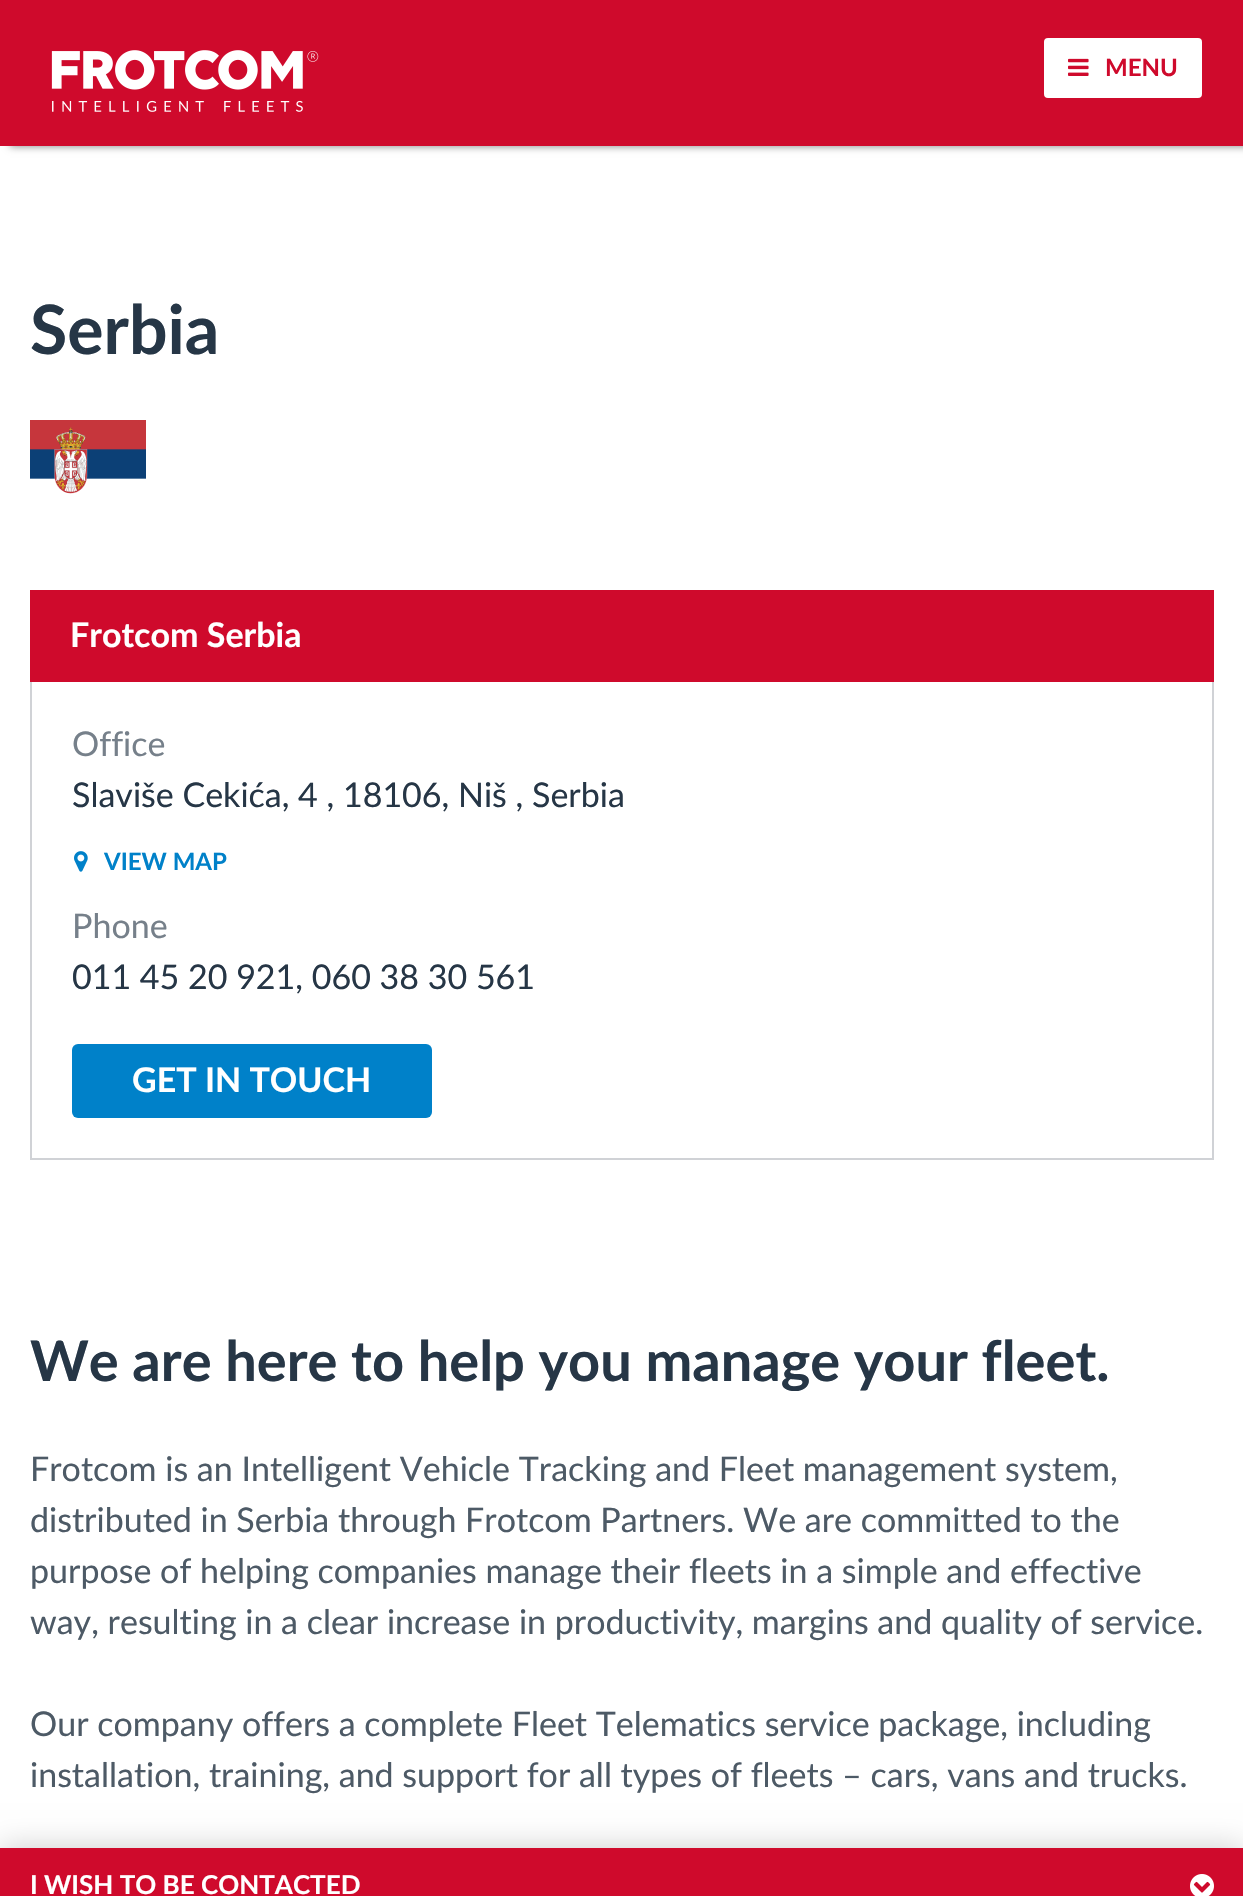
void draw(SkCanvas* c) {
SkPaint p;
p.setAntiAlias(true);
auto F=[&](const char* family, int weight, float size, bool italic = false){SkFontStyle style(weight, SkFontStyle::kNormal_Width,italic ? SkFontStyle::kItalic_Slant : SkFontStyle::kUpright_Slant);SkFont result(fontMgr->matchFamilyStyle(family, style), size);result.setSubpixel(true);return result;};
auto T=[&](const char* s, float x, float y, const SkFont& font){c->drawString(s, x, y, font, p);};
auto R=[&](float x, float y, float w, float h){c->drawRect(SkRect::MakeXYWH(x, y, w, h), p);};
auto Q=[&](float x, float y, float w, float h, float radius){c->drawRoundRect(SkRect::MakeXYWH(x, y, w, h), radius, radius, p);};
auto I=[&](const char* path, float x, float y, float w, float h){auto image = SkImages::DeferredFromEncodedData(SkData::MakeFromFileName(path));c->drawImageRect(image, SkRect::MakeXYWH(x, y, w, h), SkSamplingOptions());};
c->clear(0xffffffff);
p.setColor(0x80000000);
p.setMaskFilter(SkMaskFilter::MakeBlur(kNormal_SkBlurStyle, 4));
c->drawRect(SkRect::MakeXYWH(10,0,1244,146),p);
p.setMaskFilter(nullptr);
p.setColor(0xffcf0a2c);
R(0,0,1243,146);
p.setColor(0xffffffff);
c->drawRoundRect(SkRect::MakeXYWH(1043,37,160,62),5,5,p);
p.setStroke(true);
p.setStrokeWidth(2);
p.setColor(0xffcf0a2c);
c->drawRoundRect(SkRect::MakeXYWH(1043,37,160,62),5,5,p);
I("1.png",1068,58,21,18);
auto f1 = F("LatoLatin",700,24);
p.setStroke(false);
T("MENU",1105,76,f1);
I("2.png",51,50,268,62);
auto f2 = F("LatoLatin",700,68);
p.setColor(0xff263646);
T("Serbia",30,354,f2);
I("3.png",30,420,116,74);
p.setStroke(true);
p.setColor(0xffd0d2d6);
c->drawRect(SkRect::MakeXYWH(31,591,1182,568),p);
p.setStroke(false);
p.setColor(0xffcf0a2c);
R(30,590,1184,92);
auto f3 = F("LatoLatin",700,34);
p.setColor(0xffffffff);
T("Frotcom Serbia",70,647,f3);
auto f4 = F("LatoLatin",400,34);
p.setColor(0xff76808a);
T("Office",72,756,f4);
p.setColor(0xff263646);
T("Slaviše Cekića, 4 , 18106, Niš , Serbia",72,807,f4);
I("4.png",74,851,14,21);
p.setColor(0xff0081c9);
T("VIEW MAP",104,870,f1);
p.setColor(0xff76808a);
T("Phone",72,938,f4);
p.setColor(0xff263646);
T("011 45 20 921, 060 38 30 561",72,989,f4);
p.setColor(0xff0081c9);
Q(72,1044,360,74,6);
p.setColor(0xffffffff);
T("GET IN TOUCH",132,1092,f3);
auto f5 = F("LatoLatin",700,56);
p.setColor(0xff263646);
T("We are here to help you manage your fleet.",30,1381,f5);
p.setColor(0xff4d5a66);
T("Frotcom is an Intelligent Vehicle Tracking and Fleet management system,",30,1481,f4);
T("distributed in Serbia through Frotcom Partners. We are committed to the",30,1532,f4);
T("purpose of helping companies manage their fleets in a simple and effective",30,1583,f4);
T("way, resulting in a clear increase in productivity, margins and quality of service.",30,1634,f4);
T("Our company offers a complete Fleet Telematics service package, including",30,1736,f4);
T("installation, training, and support for all types of fleets – cars, vans and trucks.",30,1787,f4);
p.setColor(0x33000000);
p.setMaskFilter(SkMaskFilter::MakeBlur(kNormal_SkBlurStyle, 15));
c->drawRect(SkRect::MakeXYWH(0,1848,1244,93),p);
p.setMaskFilter(nullptr);
p.setColor(0xffcf0a2c);
R(0,1848,1243,48);
auto f6 = F("LatoLatin",700,26);
p.setColor(0xffffffff);
T("I WISH TO BE CONTACTED",30,1894,f6);
I("5.png",1190,1874,24,22);
}
